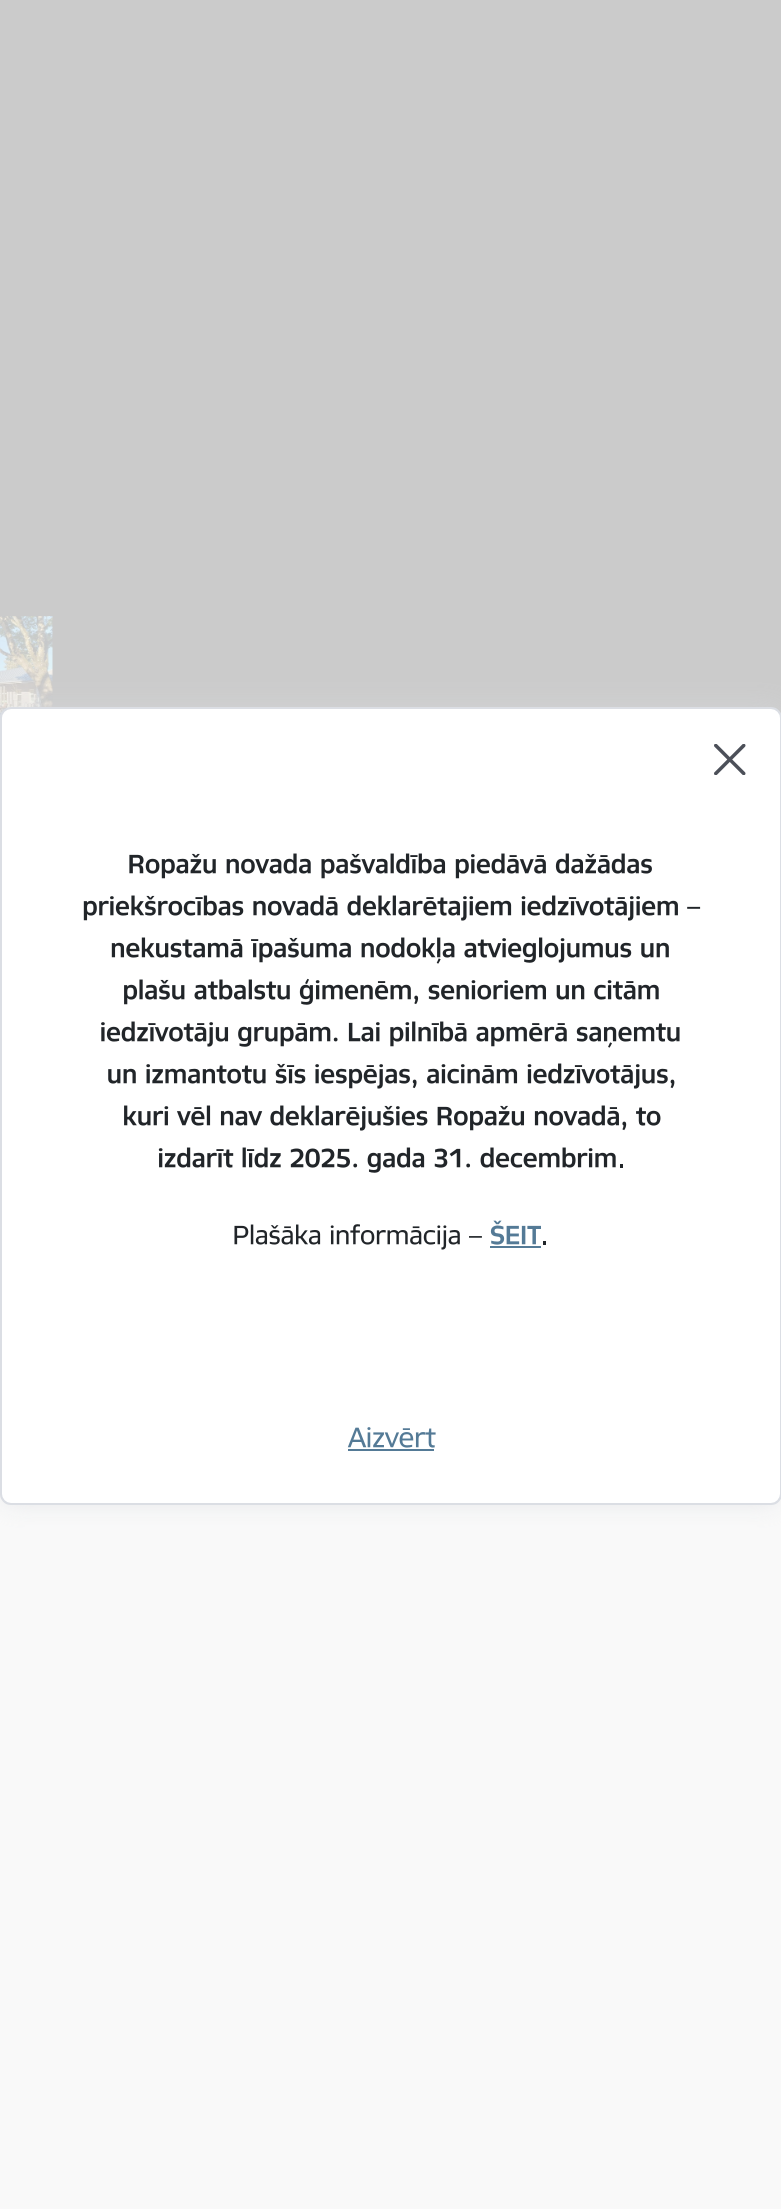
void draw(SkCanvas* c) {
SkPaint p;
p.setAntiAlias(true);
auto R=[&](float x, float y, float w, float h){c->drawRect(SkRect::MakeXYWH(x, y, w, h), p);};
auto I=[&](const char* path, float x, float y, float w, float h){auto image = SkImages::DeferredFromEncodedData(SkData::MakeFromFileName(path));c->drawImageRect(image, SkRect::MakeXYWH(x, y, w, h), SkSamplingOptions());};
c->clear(0xfff9f9f9);
p.setColor(0xffcbcbcb);
R(0,0,781,714);
I("1.png",0,616,53,102);
p.setColor(0x80d8dadd);
p.setMaskFilter(SkMaskFilter::MakeBlur(kNormal_SkBlurStyle, 13));
c->drawRoundRect(SkRect::MakeXYWH(0,707,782,798),11,11,p);
p.setMaskFilter(nullptr);
p.setColor(0xffffffff);
c->drawRoundRect(SkRect::MakeXYWH(1,708,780,796),10,10,p);
p.setStroke(true);
p.setStrokeWidth(2);
p.setColor(0xffdbdee4);
c->drawRoundRect(SkRect::MakeXYWH(1,708,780,796),10,10,p);
I("2.png",714,744,32,31);
I("3.png",129,853,523,26);
I("4.png",83,895,618,26);
I("5.png",111,937,558,27);
I("6.png",124,978,535,27);
I("7.png",101,1021,579,27);
I("8.png",108,1063,567,26);
I("9.png",124,1105,537,26);
I("10.png",158,1147,458,26);
p.setStroke(false);
p.setColor(0xff212529);
R(620,1164,3,4);
I("11.png",234,1224,248,26);
I("12.png",490,1220,51,25);
R(543,1241,3,4);
p.setColor(0xff547a96);
R(490,1246,51,2);
I("13.png",347,1427,89,21);
R(348,1449,86,2);
}
